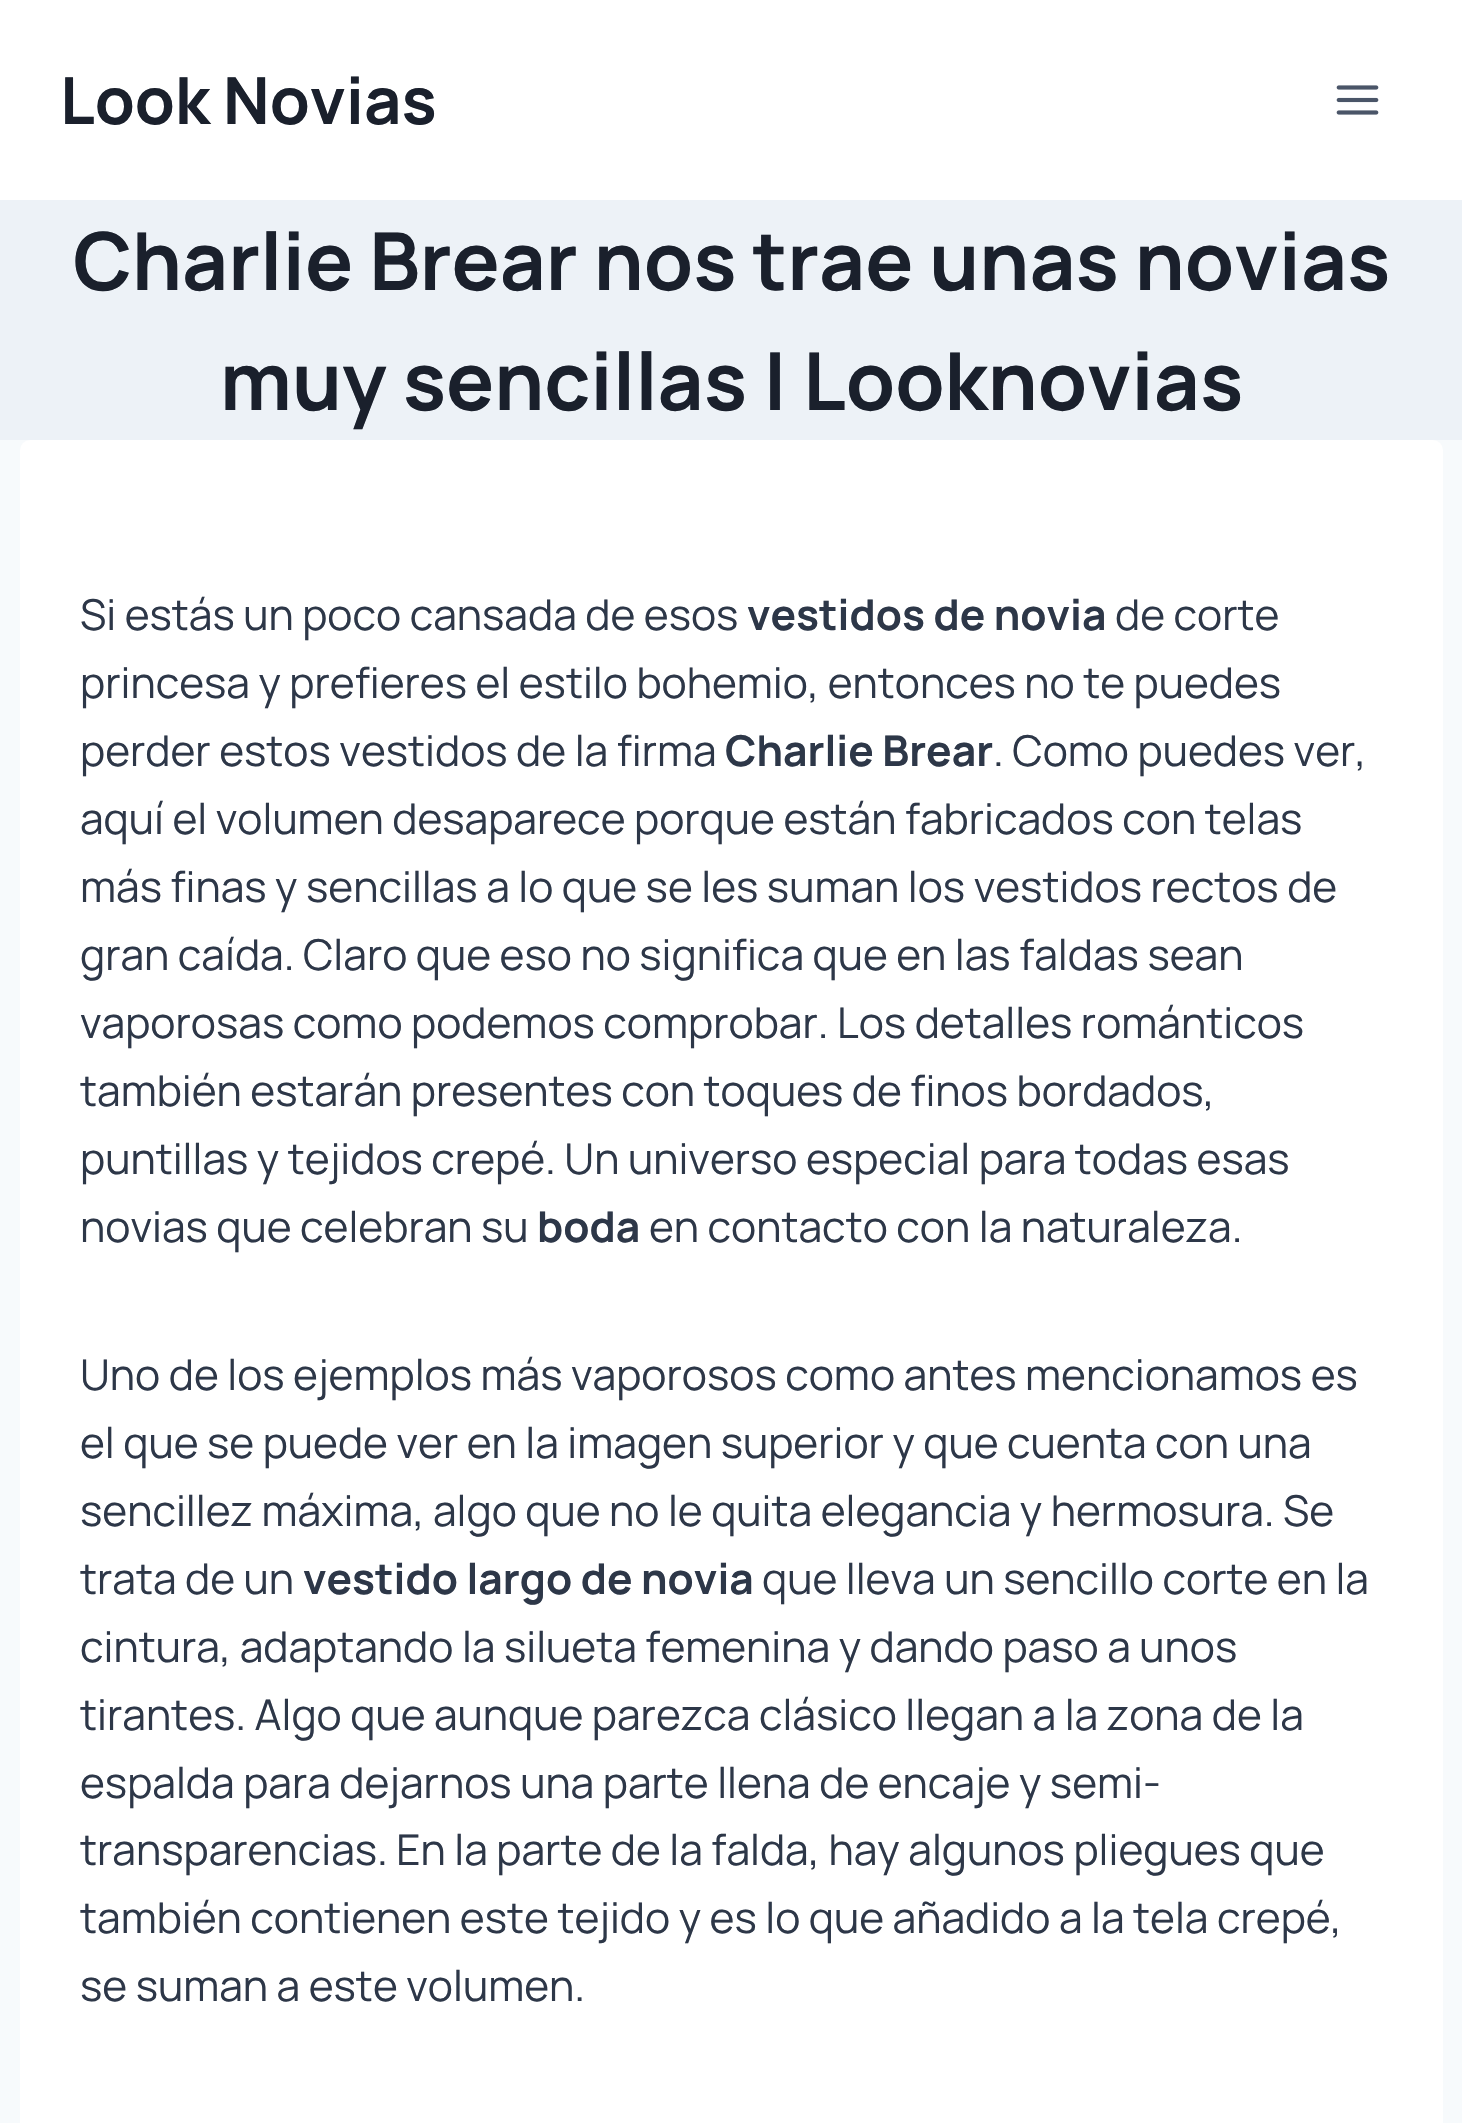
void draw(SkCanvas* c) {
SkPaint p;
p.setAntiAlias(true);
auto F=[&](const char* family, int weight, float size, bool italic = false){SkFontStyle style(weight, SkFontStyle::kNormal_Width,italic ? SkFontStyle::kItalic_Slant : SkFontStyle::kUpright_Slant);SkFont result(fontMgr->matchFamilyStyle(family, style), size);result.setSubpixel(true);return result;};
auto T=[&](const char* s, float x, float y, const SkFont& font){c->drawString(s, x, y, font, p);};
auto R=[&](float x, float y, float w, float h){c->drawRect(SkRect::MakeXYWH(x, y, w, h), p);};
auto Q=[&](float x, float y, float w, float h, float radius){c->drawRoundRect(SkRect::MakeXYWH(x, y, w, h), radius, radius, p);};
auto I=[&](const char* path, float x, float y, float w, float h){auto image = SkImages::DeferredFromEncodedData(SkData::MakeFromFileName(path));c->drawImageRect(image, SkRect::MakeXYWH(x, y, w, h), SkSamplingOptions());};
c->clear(0xfff7fafc);
p.setColor(0xffffffff);
R(0,0,1462,200);
auto f1 = F("Manrope",700,65);
p.setColor(0xff1a202c);
T("Look Novias",60,124,f1);
I("1.png",1336,85,43,30);
p.setColor(0xffedf2f7);
R(0,200,1462,240);
auto f2 = F("Manrope",700,80);
p.setColor(0xff1a202c);
T("Charlie Brear nos trae unas novias",73,290,f2);
T("muy sencillas | Looknovias",220,410,f2);
p.setColor(0xffffffff);
Q(20,440,1423,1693,10);
auto f3 = F("Manrope",400,42.5);
p.setColor(0xff2d3748);
T("Si estás un poco cansada de esos",80,630,f3);
auto f4 = F("Manrope",700,42.5);
T("vestidos de novia",747,630,f4);
T("de corte",1115,630,f3);
T("princesa y prefieres el estilo bohemio, entonces no te puedes",80,698,f3);
T("perder estos vestidos de la firma",80,766,f3);
T("Charlie Brear",725,766,f4);
T(". Como puedes ver,",993,766,f3);
T("aquí el volumen desaparece porque están fabricados con telas",80,834,f3);
T("más finas y sencillas a lo que se les suman los vestidos rectos de",80,902,f3);
T("gran caída. Claro que eso no significa que en las faldas sean",80,970,f3);
T("vaporosas como podemos comprobar. Los detalles románticos",80,1038,f3);
T("también estarán presentes con toques de finos bordados,",80,1106,f3);
T("puntillas y tejidos crepé. Un universo especial para todas esas",80,1174,f3);
T("novias que celebran su",80,1242,f3);
T("boda",537,1242,f4);
T("en contacto con la naturaleza.",649,1242,f3);
T("Uno de los ejemplos más vaporosos como antes mencionamos es",80,1390,f3);
T("el que se puede ver en la imagen superior y que cuenta con una",80,1458,f3);
T("sencillez máxima, algo que no le quita elegancia y hermosura. Se",80,1526,f3);
T("trata de un",80,1594,f3);
T("vestido largo de novia",303,1594,f4);
T("que lleva un sencillo corte en la",762,1594,f3);
T("cintura, adaptando la silueta femenina y dando paso a unos",80,1662,f3);
T("tirantes. Algo que aunque parezca clásico llegan a la zona de la",80,1730,f3);
T("espalda para dejarnos una parte llena de encaje y semi-",80,1798,f3);
T("transparencias. En la parte de la falda, hay algunos pliegues que",80,1865,f3);
T("también contienen este tejido y es lo que añadido a la tela crepé,",80,1933,f3);
T("se suman a este volumen.",80,2001,f3);
}
